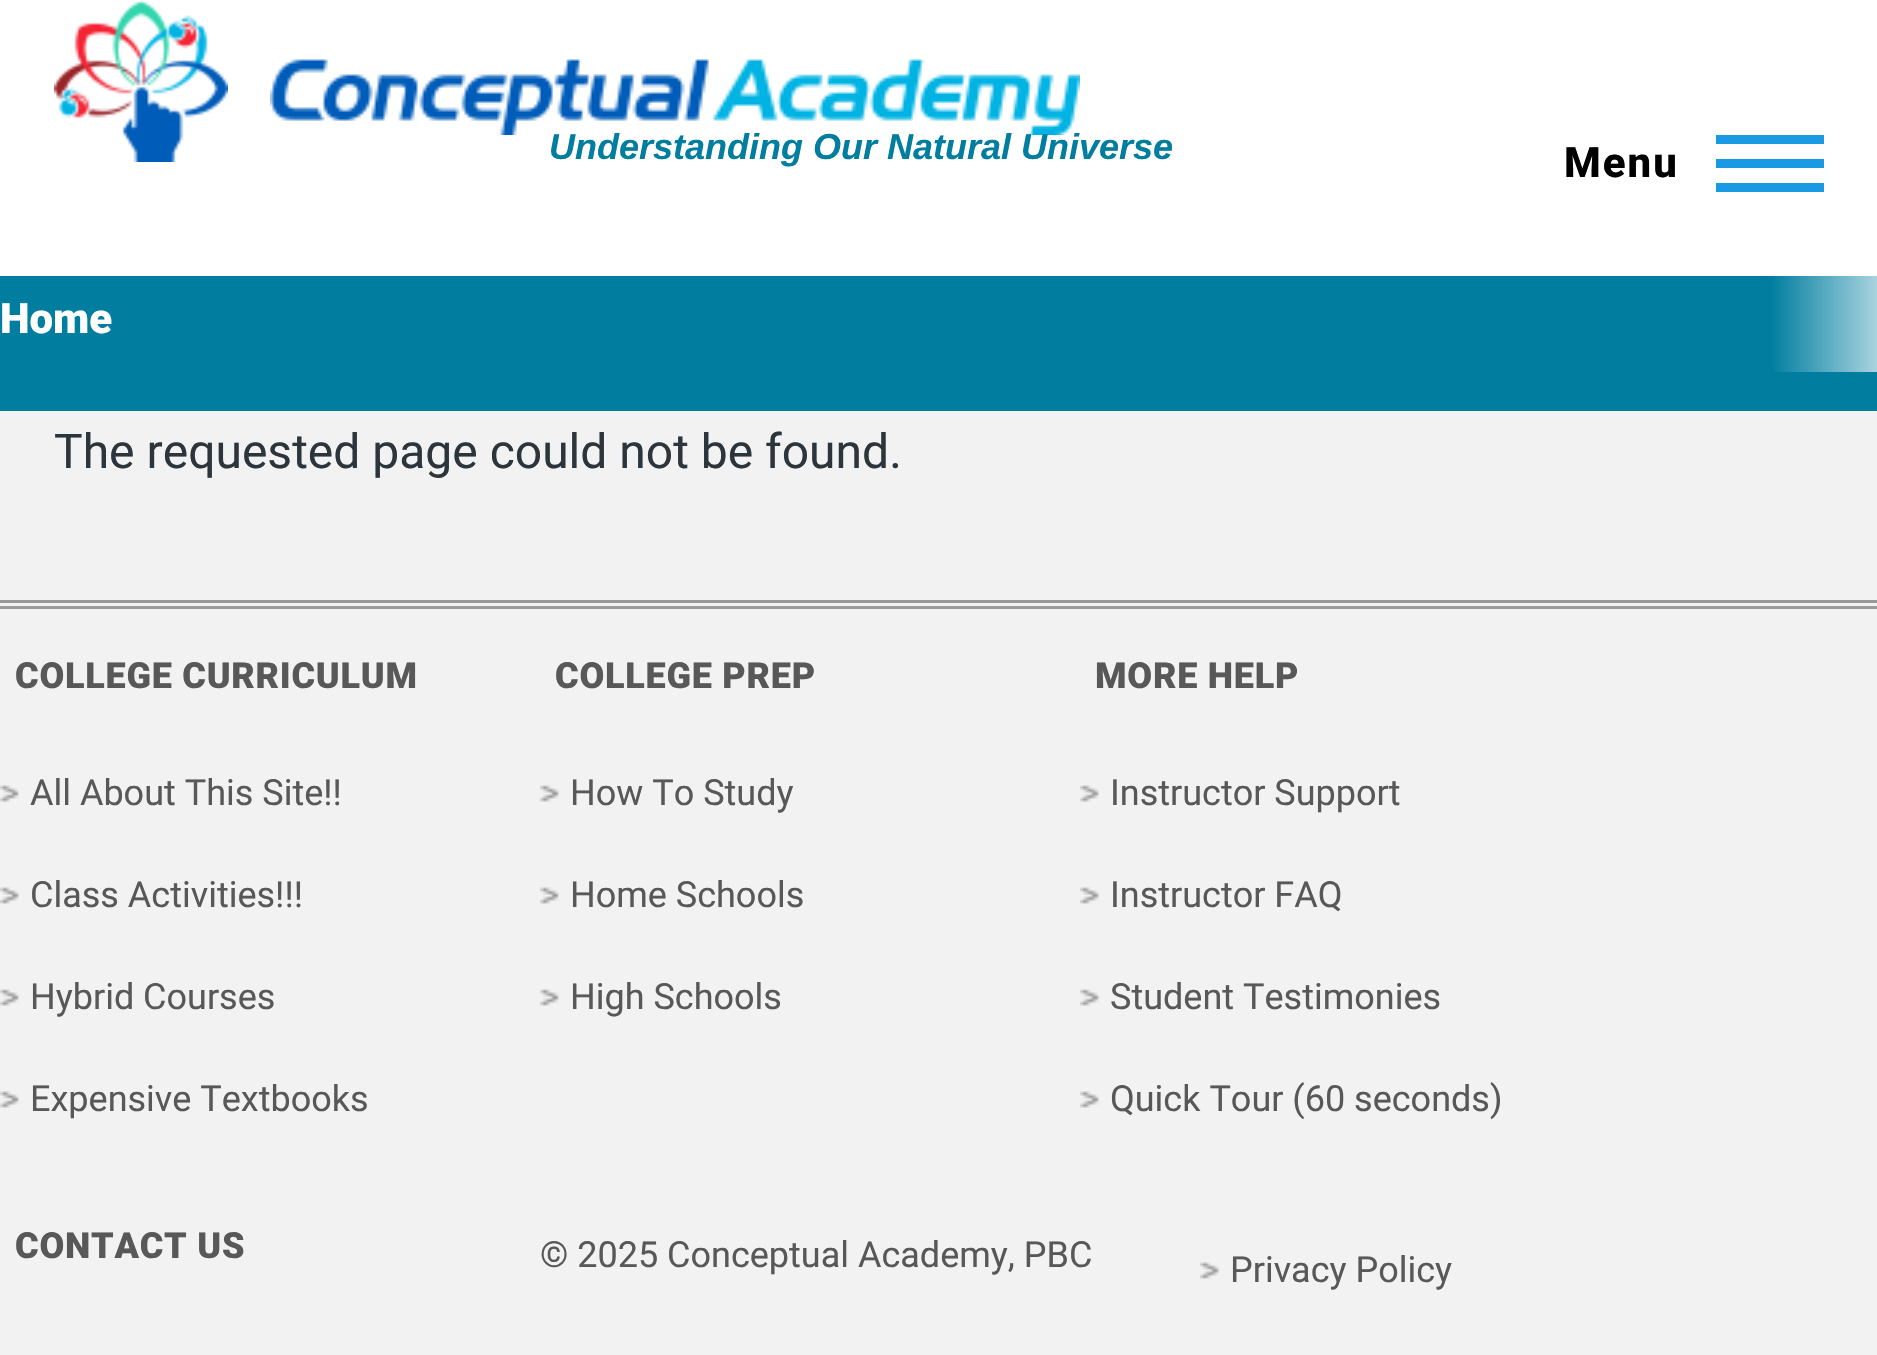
void draw(SkCanvas* c) {
SkPaint p;
p.setAntiAlias(true);
auto F=[&](const char* family, int weight, float size, bool italic = false){SkFontStyle style(weight, SkFontStyle::kNormal_Width,italic ? SkFontStyle::kItalic_Slant : SkFontStyle::kUpright_Slant);SkFont result(fontMgr->matchFamilyStyle(family, style), size);result.setSubpixel(true);return result;};
auto T=[&](const char* s, float x, float y, const SkFont& font){c->drawString(s, x, y, font, p);};
auto L=[&](const char* s, float x, float y, const SkFont& font, const SkPaint& ink, float letter, float word){std::vector<SkGlyphID> glyphs(font.countText(s, strlen(s), SkTextEncoding::kUTF8));std::vector<float> xs(glyphs.size());font.textToGlyphs(s, strlen(s), SkTextEncoding::kUTF8, glyphs);font.getXPos(glyphs, xs, x);float extra = 0;for (size_t i = 0; i < glyphs.size(); i++) {xs[i] += extra;extra += letter + word * (glyphs[i] == font.unicharToGlyph(' '));}c->drawTextBlob(SkTextBlob::MakeFromPosHGlyphs(glyphs, xs, y, font), 0, 0, ink);};
auto R=[&](float x, float y, float w, float h){c->drawRect(SkRect::MakeXYWH(x, y, w, h), p);};
auto I=[&](const char* path, float x, float y, float w, float h){auto image = SkImages::DeferredFromEncodedData(SkData::MakeFromFileName(path));c->drawImageRect(image, SkRect::MakeXYWH(x, y, w, h), SkSamplingOptions());};
c->clear(0xfff2f2f2);
p.setColor(0xffffffff);
R(0,0,1877,276);
I("1.png",54,0,174,162);
I("2.png",270,59,810,76);
auto f1 = F("Liberation Sans",700,36,true);
p.setColor(0xff007d9f);
T("Understanding Our Natural Universe",549,159,f1);
auto f2 = F("Roboto",800,42);
p.setColor(0xff000000);
L("Menu",1564,177,f2,p,2,0);
p.setColor(0xff1b9ae4);
R(1716,159,108,9);
R(1716,135,108,9);
R(1716,183,108,9);
p.setColor(0xff007d9f);
R(0,276,1877,135);
auto f3 = F("Roboto",900,42);
p.setColor(0xffffffff);
T("Home",0,333,f3);
{
const SkColor colors[] = {0xffffffff,0x00ffffff};
const float stops[] = {0,1};
const SkPoint ends[] = {{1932,318}, {1770,318}};
p.setShader(SkGradientShader::MakeLinear(ends, colors, stops, 2, SkTileMode::kClamp));
p.setAlpha(255);
}
R(1773,276,104,96);
auto f4 = F("Roboto",400,48);
p.setShader(nullptr);
p.setColor(0xff2b353b);
T("The requested page could not be found.",54,468,f4);
p.setColor(0xff999999);
R(0,600,1877,3);
R(0,606,1877,3);
auto f5 = F("Roboto",900,36);
p.setColor(0xff585858);
L("COLLEGE CURRICULUM",15,688,f5,p,.75,0);
I("3.png",0,785,19,17);
auto f6 = F("Roboto",400,36);
T("All About This Site!!",30,805,f6);
I("3.png",0,887,19,17);
T("Class Activities!!!",30,907,f6);
I("3.png",0,989,19,17);
T("Hybrid Courses",30,1009,f6);
I("3.png",0,1091,19,17);
T("Expensive Textbooks",30,1111,f6);
L("COLLEGE PREP",555,688,f5,p,.75,0);
I("3.png",540,785,19,17);
T("How To Study",570,805,f6);
I("3.png",540,887,19,17);
T("Home Schools",570,907,f6);
I("3.png",540,989,19,17);
T("High Schools",570,1009,f6);
L("MORE HELP",1095,688,f5,p,.75,0);
I("4.png",1080,785,20,17);
T("Instructor Support",1110,805,f6);
I("4.png",1080,887,20,17);
T("Instructor FAQ",1110,907,f6);
I("4.png",1080,989,20,17);
T("Student Testimonies",1110,1009,f6);
I("4.png",1080,1091,20,17);
T("Quick Tour (60 seconds)",1110,1111,f6);
L("CONTACT US",15,1258,f5,p,.75,0);
T("© 2025 Conceptual Academy, PBC",540,1267,f6);
I("4.png",1200,1262,20,17);
T("Privacy Policy",1230,1282,f6);
}
